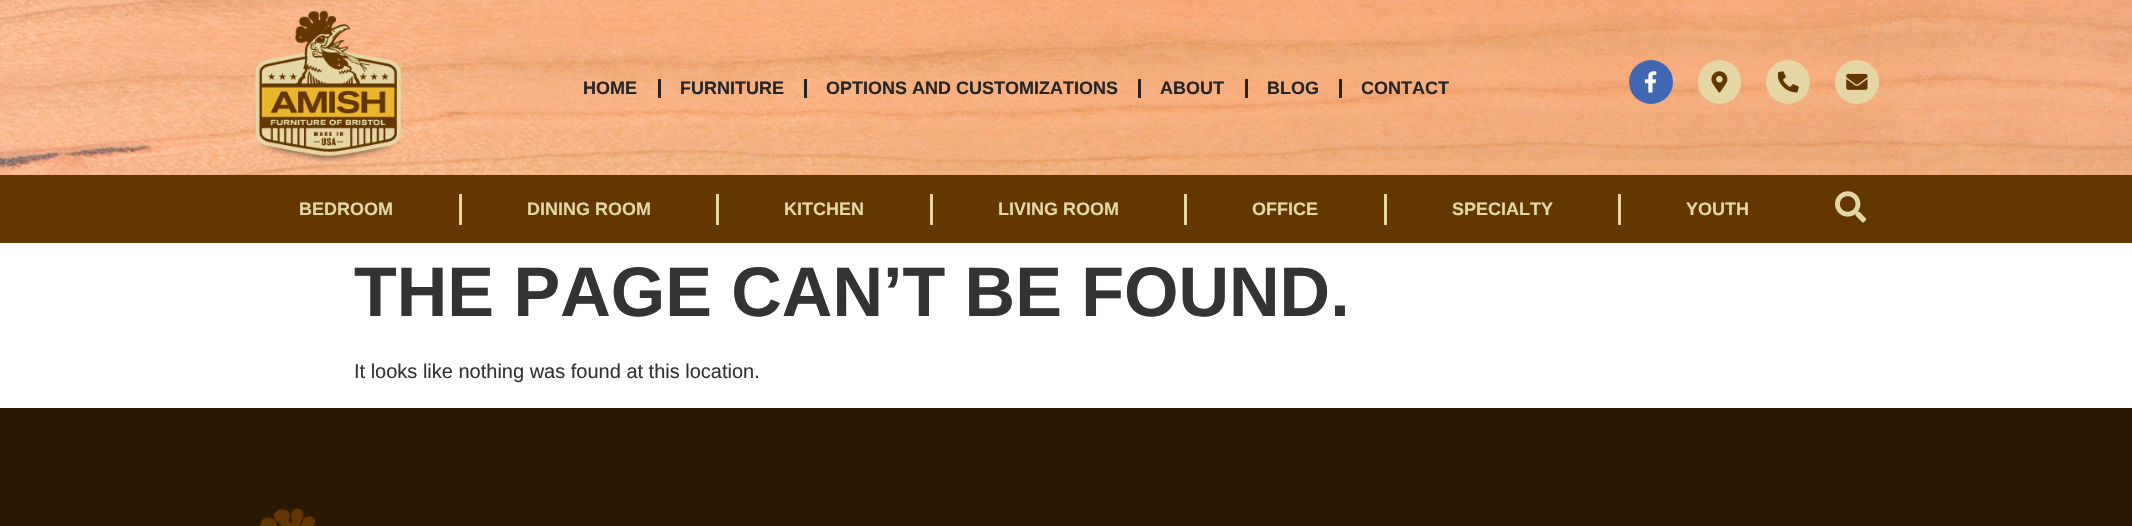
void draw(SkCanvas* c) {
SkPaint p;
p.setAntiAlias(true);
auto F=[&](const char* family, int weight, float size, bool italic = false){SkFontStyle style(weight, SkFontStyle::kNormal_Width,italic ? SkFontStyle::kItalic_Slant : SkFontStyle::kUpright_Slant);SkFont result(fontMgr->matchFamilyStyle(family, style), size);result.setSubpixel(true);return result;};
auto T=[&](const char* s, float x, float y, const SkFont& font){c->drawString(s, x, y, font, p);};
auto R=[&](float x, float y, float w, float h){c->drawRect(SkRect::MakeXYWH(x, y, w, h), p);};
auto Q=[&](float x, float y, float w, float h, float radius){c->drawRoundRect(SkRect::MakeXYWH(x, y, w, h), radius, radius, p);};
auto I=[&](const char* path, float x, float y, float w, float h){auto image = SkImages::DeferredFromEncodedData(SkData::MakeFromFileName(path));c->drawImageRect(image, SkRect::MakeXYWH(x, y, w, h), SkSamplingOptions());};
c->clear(0xffffffff);
I("1.png",0,0,2132,175);
I("2.png",254,10,148,152);
auto f1 = F("Liberation Sans",700,18);
p.setColor(0xff252525);
T("HOME",583,94,f1);
R(658,79,3,19);
T("FURNITURE",680,94,f1);
R(804,79,3,19);
T("OPTIONS AND CUSTOMIZATIONS",826,94,f1);
R(1138,79,3,19);
T("ABOUT",1160,94,f1);
R(1245,79,3,19);
T("BLOG",1267,94,f1);
R(1339,79,3,19);
T("CONTACT",1361,94,f1);
p.setColor(0xff4267b2);
c->drawCircle(1651,82,22,p);
I("3.png",1644,71,13,22);
p.setColor(0xffe6d6a5);
Q(1698,60,43,44,21.5);
I("4.png",1711,71,17,22);
c->drawCircle(1788,82,22,p);
I("5.png",1778,71,21,22);
c->drawCircle(1857,82,22,p);
I("6.png",1846,73,22,17);
p.setColor(0xff623701);
R(0,175,2132,68);
p.setColor(0xffe6d6a5);
T("BEDROOM",299,215,f1);
R(459,194,3,31);
T("DINING ROOM",527,215,f1);
R(716,194,3,31);
T("KITCHEN",784,215,f1);
R(930,194,3,31);
T("LIVING ROOM",998,215,f1);
R(1184,194,3,31);
T("OFFICE",1252,215,f1);
R(1384,194,3,31);
T("SPECIALTY",1452,215,f1);
R(1618,194,3,31);
T("YOUTH",1686,215,f1);
I("7.png",1835,191,31,32);
auto f2 = F("Liberation Sans",700,70);
p.setColor(0xff333333);
T("THE PAGE CAN’T BE FOUND.",354,316,f2);
auto f3 = F("Liberation Sans",400,20);
T("It looks like nothing was found at this location.",354,378,f3);
p.setColor(0xff2a1800);
R(0,408,2132,118);
I("8.png",260,508,56,18);
}
